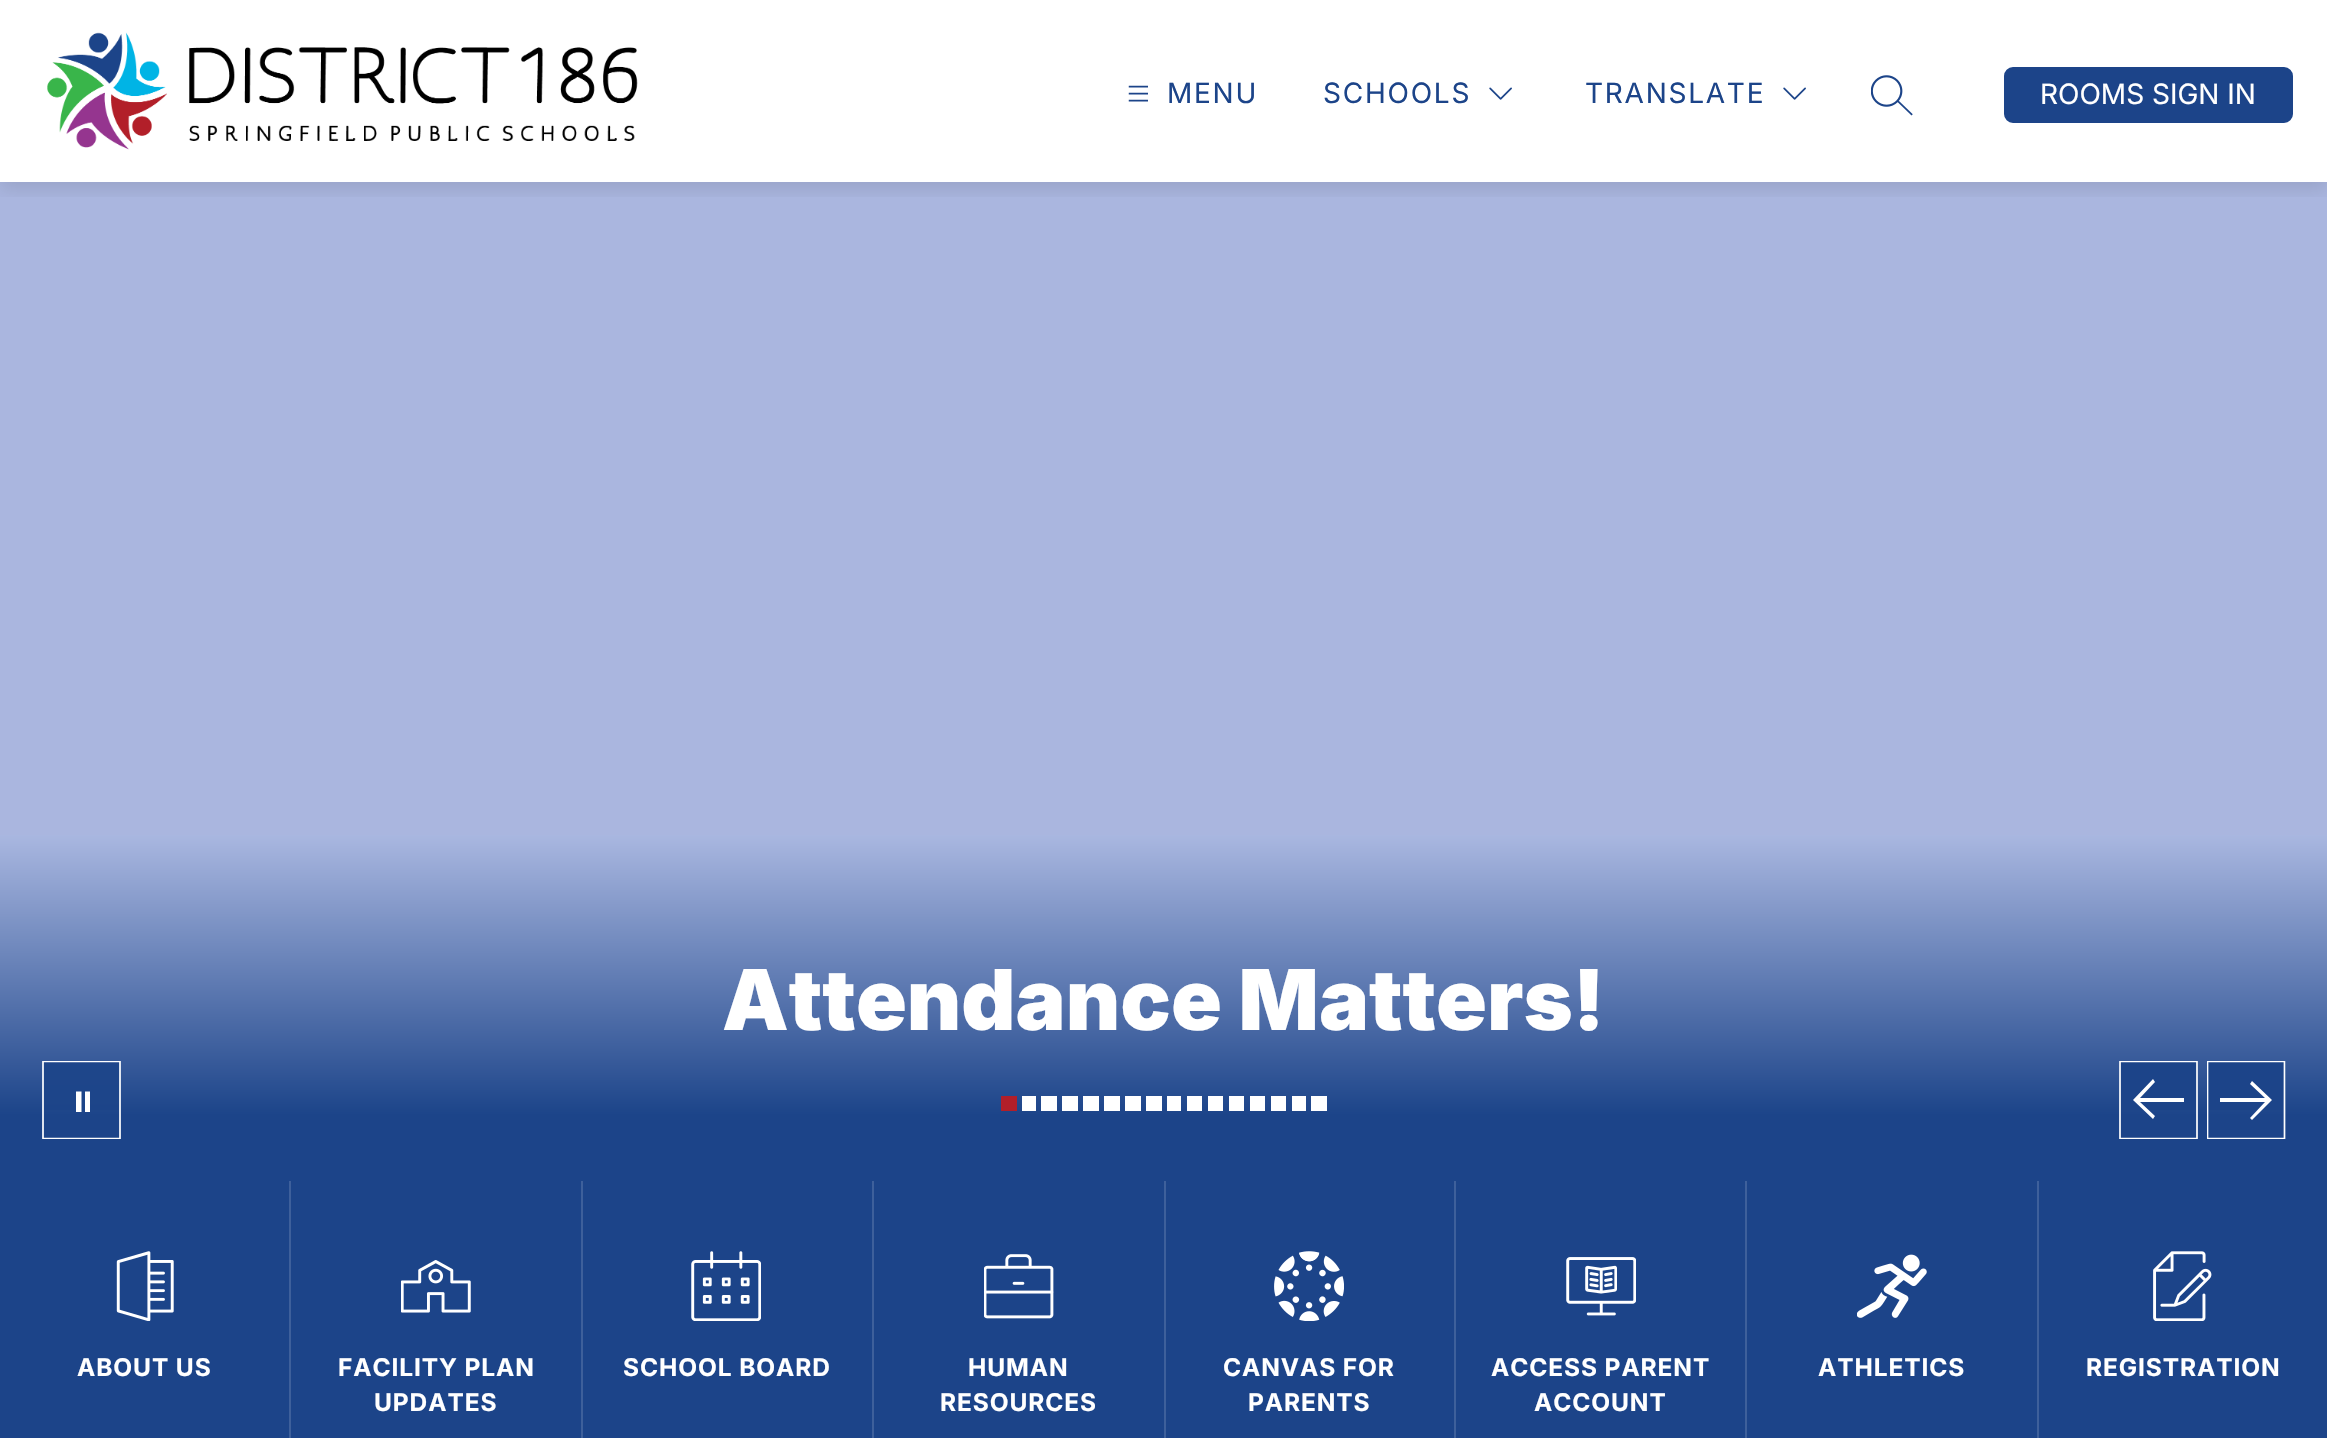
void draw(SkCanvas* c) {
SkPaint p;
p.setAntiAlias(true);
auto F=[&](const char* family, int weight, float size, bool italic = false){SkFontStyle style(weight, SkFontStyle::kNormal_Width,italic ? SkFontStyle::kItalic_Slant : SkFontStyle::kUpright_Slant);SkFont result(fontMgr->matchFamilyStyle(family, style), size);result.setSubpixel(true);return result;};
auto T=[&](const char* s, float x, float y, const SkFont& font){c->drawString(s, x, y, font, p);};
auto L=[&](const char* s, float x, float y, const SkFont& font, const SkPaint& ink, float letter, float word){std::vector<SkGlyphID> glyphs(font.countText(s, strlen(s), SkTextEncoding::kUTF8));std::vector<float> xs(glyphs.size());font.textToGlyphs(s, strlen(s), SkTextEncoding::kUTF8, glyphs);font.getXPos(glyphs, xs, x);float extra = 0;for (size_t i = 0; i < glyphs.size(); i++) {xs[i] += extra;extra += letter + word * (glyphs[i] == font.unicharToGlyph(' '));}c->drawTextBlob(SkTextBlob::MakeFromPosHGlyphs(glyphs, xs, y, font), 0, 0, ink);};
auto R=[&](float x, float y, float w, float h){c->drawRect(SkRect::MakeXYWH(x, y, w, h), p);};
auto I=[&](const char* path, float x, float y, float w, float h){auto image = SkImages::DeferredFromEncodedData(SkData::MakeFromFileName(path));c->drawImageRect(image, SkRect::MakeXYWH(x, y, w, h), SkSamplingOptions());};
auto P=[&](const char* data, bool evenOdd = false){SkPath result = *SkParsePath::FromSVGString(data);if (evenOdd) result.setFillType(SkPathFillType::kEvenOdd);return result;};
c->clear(0xffffffff);
p.setColor(0xffaab6df);
R(0,182,2327,653);
c->save();
c->clipRect(SkRect::MakeXYWH(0,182,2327,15));
p.setColor(0x1a000000);
p.setMaskFilter(SkMaskFilter::MakeBlur(kNormal_SkBlurStyle, 9));
c->drawRect(SkRect::MakeXYWH(0,7,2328,182),p);
p.setMaskFilter(nullptr);
c->restore();
I("1.png",47,32,591,118);
I("2.png",1128,85,20,17);
auto f1 = F("Inter",400,28);
p.setColor(0xff1c4489);
L("MENU",1167,103,f1,p,1.75,0);
L("SCHOOLS",1323,103,f1,p,1.75,0);
I("3.png",1489,87,23,13);
L("TRANSLATE",1585,103,f1,p,1.75,0);
I("3.png",1783,87,23,13);
I("4.png",1871,75,42,41);
c->drawRoundRect(SkRect::MakeXYWH(2005,68,287,54),8,8,p);
p.setStroke(true);
p.setStrokeWidth(2);
c->drawRoundRect(SkRect::MakeXYWH(2005,68,287,54),8,8,p);
p.setStroke(false);
p.setColor(0xffffffff);
T("ROOMS SIGN IN",2040,104,f1);
{
const SkColor colors[] = {0xffa9b7e0,0xff1c4489};
const float stops[] = {0,.81};
const SkPoint ends[] = {{1164,835}, {1164,1181}};
p.setShader(SkGradientShader::MakeLinear(ends, colors, stops, 2, SkTileMode::kClamp));
p.setAlpha(255);
}
R(0,835,2327,346);
{
const SkColor colors[] = {0xff2a5092,0xff1c4489};
const float stops[] = {0,.81};
const SkPoint ends[] = {{1164,835}, {1164,1181}};
p.setShader(SkGradientShader::MakeLinear(ends, colors, stops, 2, SkTileMode::kClamp));
p.setAlpha(255);
}
R(43,1062,77,48);
auto f2 = F("Inter",900,84);
p.setShader(nullptr);
p.setColor(0xffffffff);
T("Attendance Matters!",722,1030,f2);
p.setColor(0xffb21f29);
R(1001,1096,16,15);
p.setColor(0xffffffff);
R(1022,1096,14,15);
R(1041,1096,16,15);
R(1062,1096,16,15);
R(1083,1096,16,15);
R(1104,1096,16,15);
R(1125,1096,16,15);
R(1146,1096,16,15);
R(1167,1096,14,15);
R(1187,1096,15,15);
R(1208,1096,15,15);
R(1229,1096,15,15);
R(1250,1096,15,15);
R(1271,1096,15,15);
R(1292,1096,14,15);
R(1311,1096,16,15);
c->save();
c->clipRect(SkRect::MakeXYWH(42,1061,79,78));
p.setStroke(true);
p.setStrokeWidth(1.7);
c->drawPath(P("M43 1061.5h77v77h-77z"),p);
c->restore();
p.setStroke(false);
c->drawPath(P("M81.5 1091.5h-5.5v20.5h5.5zm8.5 0h-5v20.5h5z",true),p);
p.setColor(0xff1c4489);
R(2119,1061,79,49);
c->save();
c->clipRect(SkRect::MakeXYWH(2119,1061,79,78));
p.setStroke(true);
p.setColor(0xffffffff);
c->drawPath(P("M2197 1138.5h-77v-77h77z"),p);
c->restore();
p.setStroke(false);
c->drawPath(P("M2153 1119l-20-19l20-21l2 3l-15 16h44v4h-44l15 14z"),p);
p.setColor(0xff1c4489);
R(2208,1061,78,49);
c->save();
c->clipRect(SkRect::MakeXYWH(2207,1061,79,78));
p.setStroke(true);
p.setColor(0xffffffff);
c->drawPath(P("M2207.5 1061.5h77v77h-77z"),p);
c->restore();
p.setStroke(false);
c->drawPath(P("M2252 1081l20 19l-20 20l-2-2l15-16h-45v-4h45l-15-14z"),p);
p.setColor(0xff1c4489);
R(0,1181,289,257);
I("5.png",116,1251,58,70);
auto f3 = F("Inter",700,24.5);
p.setColor(0xffffffff);
L("ABOUT US",77,1376,f3,p,.9,0);
p.setColor(0xff1c4489);
R(291,1181,290,257);
p.setColor(0xff3e609b);
R(289,1181,2,257);
I("6.png",401,1260,70,53);
p.setColor(0xffffffff);
L("FACILITY PLAN",338,1376,f3,p,.9,0);
L("UPDATES",374,1411,f3,p,.9,0);
p.setColor(0xff1c4489);
R(583,1181,289,257);
p.setColor(0xff3e609b);
R(581,1181,2,257);
I("7.png",691,1251,70,70);
p.setColor(0xffffffff);
L("SCHOOL BOARD",623,1376,f3,p,.9,0);
p.setColor(0xff1c4489);
R(874,1181,290,257);
p.setColor(0xff3e609b);
R(872,1181,2,257);
I("8.png",984,1254,70,65);
p.setColor(0xffffffff);
L("HUMAN",968,1376,f3,p,.9,0);
L("RESOURCES",940,1411,f3,p,.9,0);
p.setColor(0xff1c4489);
R(1166,1181,288,257);
p.setColor(0xff3e609b);
R(1164,1181,2,257);
I("9.png",1274,1251,70,70);
p.setColor(0xffffffff);
L("CANVAS FOR",1223,1376,f3,p,.9,0);
L("PARENTS",1248,1411,f3,p,.9,0);
p.setColor(0xff1c4489);
R(1456,1181,289,257);
p.setColor(0xff3e609b);
R(1454,1181,2,257);
I("10.png",1566,1257,70,59);
p.setColor(0xffffffff);
L("ACCESS PARENT",1491,1376,f3,p,.9,0);
L("ACCOUNT",1534,1411,f3,p,.9,0);
p.setColor(0xff1c4489);
R(1747,1181,290,257);
p.setColor(0xff3e609b);
R(1745,1181,2,257);
I("11.png",1857,1254,70,64);
p.setColor(0xffffffff);
L("ATHLETICS",1818,1376,f3,p,.9,0);
p.setColor(0xff1c4489);
R(2039,1181,288,257);
p.setColor(0xff3e609b);
R(2037,1181,2,257);
I("12.png",2153,1251,59,70);
p.setColor(0xffffffff);
L("REGISTRATION",2086,1376,f3,p,.9,0);
}
